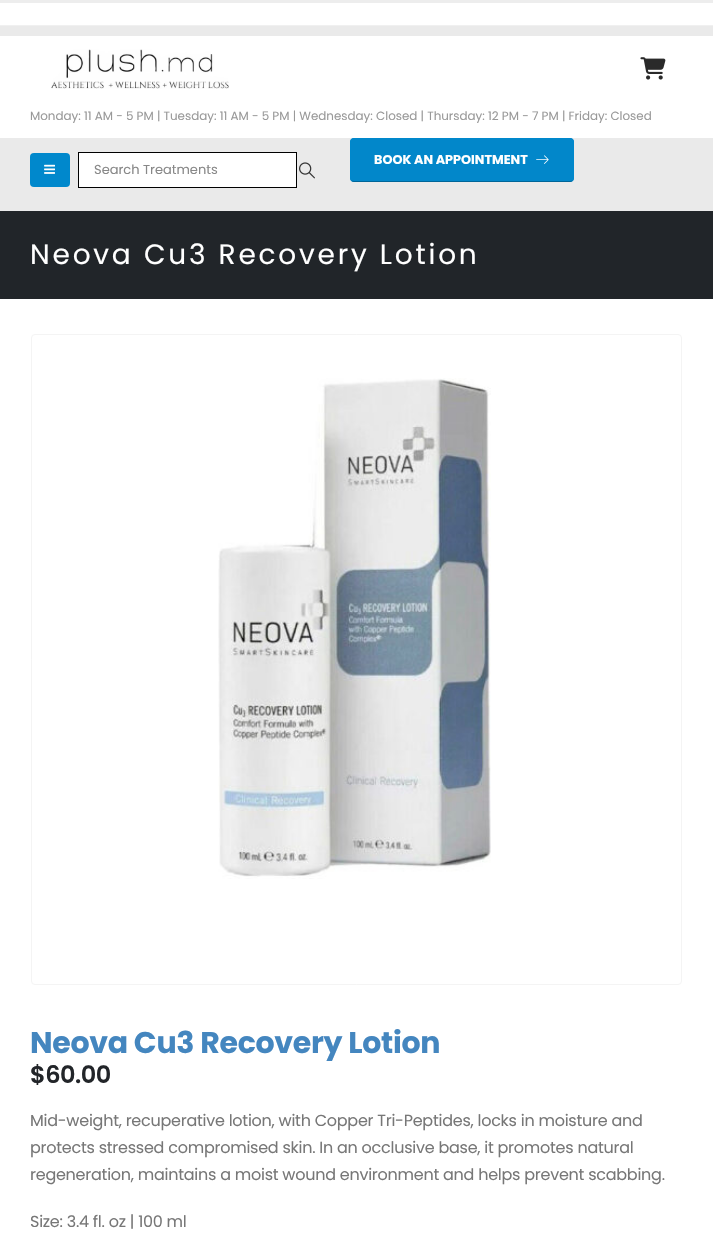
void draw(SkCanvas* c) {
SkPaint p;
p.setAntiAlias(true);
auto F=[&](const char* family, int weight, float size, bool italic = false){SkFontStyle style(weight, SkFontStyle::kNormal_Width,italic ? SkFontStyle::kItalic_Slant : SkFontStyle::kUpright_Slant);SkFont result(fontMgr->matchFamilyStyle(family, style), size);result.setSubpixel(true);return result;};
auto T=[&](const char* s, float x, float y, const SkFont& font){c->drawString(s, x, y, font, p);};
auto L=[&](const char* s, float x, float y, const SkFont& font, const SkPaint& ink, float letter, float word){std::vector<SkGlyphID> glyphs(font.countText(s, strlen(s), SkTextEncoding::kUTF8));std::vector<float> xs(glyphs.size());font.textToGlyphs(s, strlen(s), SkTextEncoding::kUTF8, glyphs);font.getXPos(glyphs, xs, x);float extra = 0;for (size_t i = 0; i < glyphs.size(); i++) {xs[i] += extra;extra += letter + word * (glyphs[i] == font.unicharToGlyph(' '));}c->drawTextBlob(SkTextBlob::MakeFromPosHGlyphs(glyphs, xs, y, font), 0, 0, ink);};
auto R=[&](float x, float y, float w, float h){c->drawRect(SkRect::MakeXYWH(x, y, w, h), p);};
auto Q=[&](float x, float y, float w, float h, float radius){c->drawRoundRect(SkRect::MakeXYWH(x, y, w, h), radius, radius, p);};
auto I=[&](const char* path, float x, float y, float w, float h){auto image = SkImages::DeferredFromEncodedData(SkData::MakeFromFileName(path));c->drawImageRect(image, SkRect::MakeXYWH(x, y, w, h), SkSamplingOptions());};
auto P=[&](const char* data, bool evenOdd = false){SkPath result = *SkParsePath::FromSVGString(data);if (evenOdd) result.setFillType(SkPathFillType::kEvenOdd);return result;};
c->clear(0xffffffff);
p.setColor(0xffededed);
R(0,0,713,3);
p.setColor(0xfff0f0f0);
R(0,25,713,1);
p.setColor(0xffeaeaea);
R(0,26,713,10);
I("1.png",51,49,178,40);
I("2.png",640,57,26,23);
auto f1 = F("Poppins",400,11.9);
p.setColor(0xff999999);
T("Monday: 11 AM - 5 PM | Tuesday: 11 AM - 5 PM | Wednesday: Closed | Thursday: 12 PM - 7 PM | Friday: Closed",30,120,f1);
p.setColor(0xffeaeaea);
R(0,138,713,73);
p.setColor(0xff0088cc);
Q(30,153,40,34,4);
I("3.png",44,164,11,10);
p.setColor(0xff0287ca);
Q(350,138,224,44,4);
p.setStroke(true);
p.setStrokeWidth(1);
p.setColor(0xff006699);
c->drawPath(P("M572.5 180.5c-.5 .5-1.5 1-2.5 1h-216c-1 0-2-.5-2.5-1"),p);
p.setColor(0xff0088cc);
c->drawPath(P("M351.5 180.5c-.5-.5-1-1.5-1-2.5v-36c0-1 .5-2 1-2.5c.5-.5 1.5-1 2.5-1h216c1 0 2 .5 2.5 1c.5 .5 1 1.5 1 2.5v36c0 1-.5 2-1 2.5"),p);
auto f2 = F("Poppins",700,12.75);
p.setStroke(false);
p.setColor(0xffffffff);
T("BOOK AN APPOINTMENT",374,164,f2);
I("4.png",536,155,13,9);
c->drawRect(SkRect::MakeXYWH(78.5,152.5,218,35),p);
p.setStroke(true);
p.setColor(0xff000000);
c->drawRect(SkRect::MakeXYWH(78.5,152.5,218,35),p);
auto f3 = F("Poppins",400,13);
p.setStroke(false);
p.setColor(0xff888888);
T("Search Treatments",94,174,f3);
I("5.png",299,162,16,17);
p.setColor(0xff212529);
R(0,211,713,88);
auto f4 = F("Poppins",400,28);
p.setColor(0xffffffff);
L("Neova Cu3 Recovery Lotion",30,264,f4,p,2.8,0);
p.setStroke(true);
p.setColor(0xfff4f4f4);
c->drawRoundRect(SkRect::MakeXYWH(31.5,334.5,650,650),3.5,3.5,p);
I("6.png",218,378,273,501);
auto f5 = F("Poppins",700,30);
p.setStroke(false);
p.setColor(0xff4486bf);
L("Neova Cu3 Recovery Lotion",30,1053,f5,p,-.3,0);
auto f6 = F("Poppins",600,24);
p.setColor(0xff222529);
L("$60.00",30,1083,f6,p,-.5,0);
auto f7 = F("Poppins",400,16);
p.setColor(0xff777777);
L("Mid-weight, recuperative lotion, with Copper Tri-Peptides, locks in moisture and",30,1126,f7,p,-.25,0);
L("protects stressed compromised skin. In an occlusive base, it promotes natural",30,1153,f7,p,-.25,0);
L("regeneration, maintains a moist wound environment and helps prevent scabbing.",30,1180,f7,p,-.25,0);
L("Size: 3.4 fl. oz | 100 ml",30,1227,f7,p,-.25,0);
}
